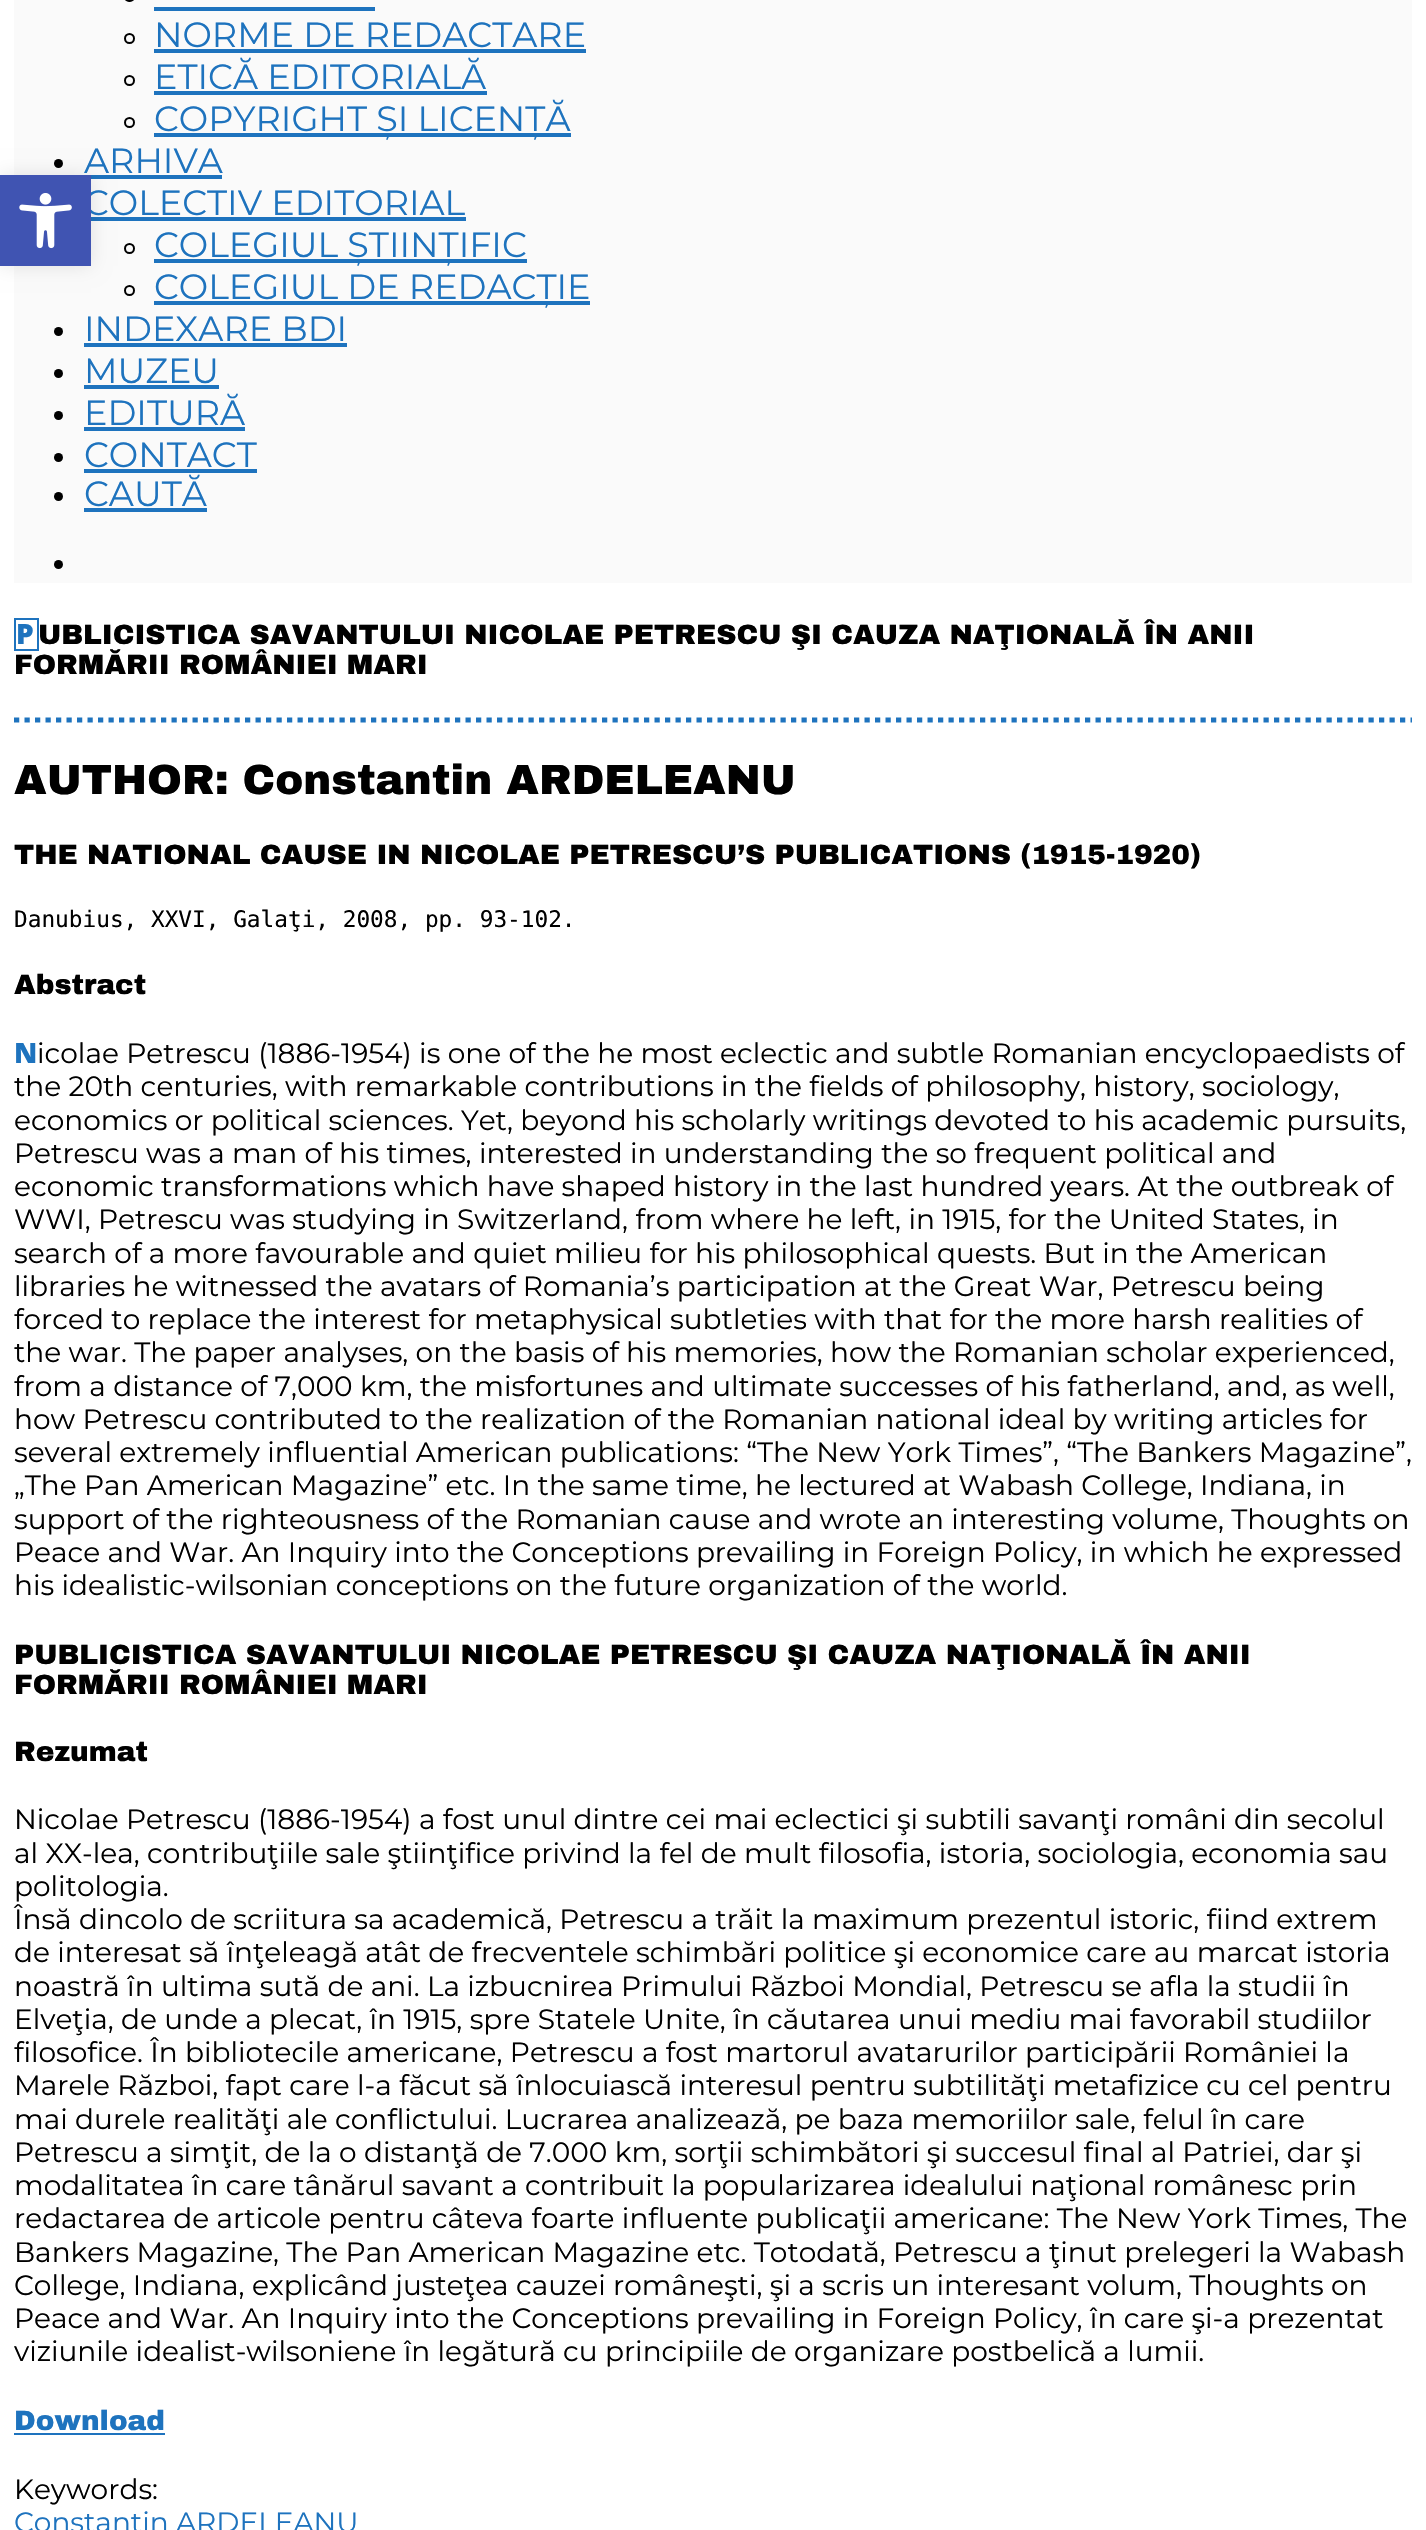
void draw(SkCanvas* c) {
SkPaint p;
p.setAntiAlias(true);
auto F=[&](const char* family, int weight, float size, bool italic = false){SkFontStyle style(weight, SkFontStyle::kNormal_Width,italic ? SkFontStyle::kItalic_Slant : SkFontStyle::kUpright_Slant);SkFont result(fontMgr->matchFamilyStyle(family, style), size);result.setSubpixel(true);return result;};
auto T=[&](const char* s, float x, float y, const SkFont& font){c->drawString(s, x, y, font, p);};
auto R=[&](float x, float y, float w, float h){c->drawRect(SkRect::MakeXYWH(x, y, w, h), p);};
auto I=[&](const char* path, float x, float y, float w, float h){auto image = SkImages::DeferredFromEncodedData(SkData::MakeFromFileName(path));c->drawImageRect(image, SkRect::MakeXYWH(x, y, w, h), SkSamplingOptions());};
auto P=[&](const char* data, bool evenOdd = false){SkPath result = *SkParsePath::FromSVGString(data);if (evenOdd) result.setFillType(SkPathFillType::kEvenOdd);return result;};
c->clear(0xffffffff);
p.setColor(0xfffafafa);
R(14,0,1398,583);
p.setColor(0xff000000);
c->drawCircle(58.5,163.5,4.5,p);
p.setColor(0xff1e73be);
R(84,175,138,4);
R(84,217,382,4);
p.setColor(0x1a000000);
p.setMaskFilter(SkMaskFilter::MakeBlur(kNormal_SkBlurStyle, 9));
c->drawRect(SkRect::MakeXYWH(0,175,91,91),p);
p.setMaskFilter(nullptr);
auto f1 = F("Montserrat",400,35);
p.setColor(0xff1e73be);
T("COLECTIV EDITORIAL",84,215,f1);
p.setColor(0xff4054b2);
R(0,175,91,91);
I("1.png",19,193,53,56);
p.setStroke(true);
p.setStrokeWidth(2);
p.setColor(0xff000000);
c->drawRoundRect(SkRect::MakeXYWH(125,-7,9,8),4.5,4.5,p);
p.setStroke(false);
p.setColor(0xff1e73be);
R(154,7,221,4);
p.setStroke(true);
p.setColor(0xff000000);
c->drawCircle(129.5,38.5,4.5,p);
p.setStroke(false);
p.setColor(0xff1e73be);
T("NORME DE REDACTARE",154,47,f1);
R(154,49,432,4);
p.setStroke(true);
p.setColor(0xff000000);
c->drawCircle(129.5,80.5,4.5,p);
p.setStroke(false);
p.setColor(0xff1e73be);
T("ETICĂ EDITORIALĂ",154,89,f1);
R(154,91,333,4);
p.setStroke(true);
p.setColor(0xff000000);
c->drawCircle(129.5,122.5,4.5,p);
p.setStroke(false);
p.setColor(0xff1e73be);
R(154,133,417,4);
T("COPYRIGHT ȘI LICENȚĂ",154,131,f1);
T("ARHIVA",84,173,f1);
p.setStroke(true);
p.setColor(0xff000000);
c->drawCircle(129.5,248.5,4.5,p);
p.setStroke(false);
p.setColor(0xff1e73be);
R(154,259,373,4);
T("COLEGIUL ȘTIINȚIFIC",154,257,f1);
p.setStroke(true);
p.setColor(0xff000000);
c->drawCircle(129.5,290.5,4.5,p);
p.setStroke(false);
p.setColor(0xff1e73be);
R(154,301,436,4);
T("COLEGIUL DE REDACȚIE",154,299,f1);
p.setColor(0xff000000);
c->drawCircle(58.5,331.5,4.5,p);
p.setColor(0xff1e73be);
T("INDEXARE BDI",84,341,f1);
R(84,343,263,4);
p.setColor(0xff000000);
c->drawCircle(58.5,373.5,4.5,p);
p.setColor(0xff1e73be);
T("MUZEU",84,383,f1);
R(84,385,135,4);
p.setColor(0xff000000);
c->drawCircle(58.5,415.5,4.5,p);
p.setColor(0xff1e73be);
T("EDITURĂ",84,425,f1);
R(84,427,161,4);
p.setColor(0xff000000);
c->drawCircle(58.5,457.5,4.5,p);
p.setColor(0xff1e73be);
T("CONTACT",84,467,f1);
R(84,469,173,4);
p.setColor(0xff000000);
c->drawCircle(58.5,496.5,4.5,p);
p.setColor(0xff1e73be);
T("CAUTĂ",84,506,f1);
R(84,508,123,4);
p.setColor(0xff000000);
c->drawCircle(58.5,564.5,4.5,p);
p.setStroke(true);
p.setColor(0xff1e73be);
c->drawRect(SkRect::MakeXYWH(15,619,23,31),p);
auto f2 = F("Noto Sans",900,28);
p.setStroke(false);
T("P",16,644,f2);
auto f3 = F("Archivo Black",900,28);
p.setColor(0xff000000);
T("UBLICISTICA SAVANTULUI NICOLAE PETRESCU ŞI CAUZA NAŢIONALĂ ÎN ANII",38,644,f3);
T("FORMĂRII ROMÂNIEI MARI",14,674,f3);
p.setStroke(true);
p.setStrokeWidth(5.2);
p.setColor(0xff1e73be);
p.setPathEffect(SkDashPathEffect::Make({{5.25f,5.25f}}, 0));
c->drawPath(P("M14 720h1398"),p);
p.setPathEffect(nullptr);
auto f4 = F("Archivo Black",900,42);
p.setStroke(false);
p.setColor(0xff000000);
T("AUTHOR: Constantin ARDELEANU",14,794,f4);
T("THE NATIONAL CAUSE IN NICOLAE PETRESCU’S PUBLICATIONS (1915-1920)",14,864,f3);
auto f5 = F("DejaVu Sans Mono",400,22.75);
T("Danubius, XXVI, Galaţi, 2008, pp. 93-102.",14,927,f5);
T("Abstract",14,994,f3);
p.setColor(0xff1e73be);
T("N",14,1063,f2);
auto f6 = F("Montserrat",400,28);
p.setColor(0xff000000);
T("icolae Petrescu (1886-1954) is one of the he most eclectic and subtle Romanian encyclopaedists of",37,1063,f6);
T("the 20th centuries, with remarkable contributions in the fields of philosophy, history, sociology,",14,1096,f6);
T("economics or political sciences. Yet, beyond his scholarly writings devoted to his academic pursuits,",14,1130,f6);
T("Petrescu was a man of his times, interested in understanding the so frequent political and",14,1163,f6);
T("economic transformations which have shaped history in the last hundred years. At the outbreak of",14,1196,f6);
T("WWI, Petrescu was studying in Switzerland, from where he left, in 1915, for the United States, in",14,1229,f6);
T("search of a more favourable and quiet milieu for his philosophical quests. But in the American",14,1263,f6);
T("libraries he witnessed the avatars of Romania’s participation at the Great War, Petrescu being",14,1296,f6);
T("forced to replace the interest for metaphysical subtleties with that for the more harsh realities of",14,1329,f6);
T("the war. The paper analyses, on the basis of his memories, how the Romanian scholar experienced,",14,1362,f6);
T("from a distance of 7,000 km, the misfortunes and ultimate successes of his fatherland, and, as well,",14,1396,f6);
T("how Petrescu contributed to the realization of the Romanian national ideal by writing articles for",14,1429,f6);
T("several extremely influential American publications: “The New York Times”, “The Bankers Magazine”,",14,1462,f6);
T("„The Pan American Magazine” etc. In the same time, he lectured at Wabash College, Indiana, in",14,1495,f6);
T("support of the righteousness of the Romanian cause and wrote an interesting volume, Thoughts on",14,1529,f6);
T("Peace and War. An Inquiry into the Conceptions prevailing in Foreign Policy, in which he expressed",14,1562,f6);
T("his idealistic-wilsonian conceptions on the future organization of the world.",14,1595,f6);
T("PUBLICISTICA SAVANTULUI NICOLAE PETRESCU ŞI CAUZA NAŢIONALĂ ÎN ANII",14,1664,f3);
T("FORMĂRII ROMÂNIEI MARI",14,1694,f3);
T("Rezumat",14,1761,f3);
T("Nicolae Petrescu (1886-1954) a fost unul dintre cei mai eclectici şi subtili savanţi români din secolul",14,1829,f6);
T("al XX-lea, contribuţiile sale ştiinţifice privind la fel de mult filosofia, istoria, sociologia, economia sau",14,1863,f6);
T("politologia.",14,1896,f6);
T("Însă dincolo de scriitura sa academică, Petrescu a trăit la maximum prezentul istoric, fiind extrem",14,1929,f6);
T("de interesat să înţeleagă atât de frecventele schimbări politice şi economice care au marcat istoria",14,1962,f6);
T("noastră în ultima sută de ani. La izbucnirea Primului Război Mondial, Petrescu se afla la studii în",14,1996,f6);
T("Elveţia, de unde a plecat, în 1915, spre Statele Unite, în căutarea unui mediu mai favorabil studiilor",14,2029,f6);
T("filosofice. În bibliotecile americane, Petrescu a fost martorul avatarurilor participării României la",14,2062,f6);
T("Marele Război, fapt care l-a făcut să înlocuiască interesul pentru subtilităţi metafizice cu cel pentru",14,2095,f6);
T("mai durele realităţi ale conflictului. Lucrarea analizează, pe baza memoriilor sale, felul în care",14,2129,f6);
T("Petrescu a simţit, de la o distanţă de 7.000 km, sorţii schimbători şi succesul final al Patriei, dar şi",14,2162,f6);
T("modalitatea în care tânărul savant a contribuit la popularizarea idealului naţional românesc prin",14,2195,f6);
T("redactarea de articole pentru câteva foarte influente publicaţii americane: The New York Times, The",14,2228,f6);
T("Bankers Magazine, The Pan American Magazine etc. Totodată, Petrescu a ţinut prelegeri la Wabash",14,2262,f6);
T("College, Indiana, explicând justeţea cauzei româneşti, şi a scris un interesant volum, Thoughts on",14,2295,f6);
T("Peace and War. An Inquiry into the Conceptions prevailing in Foreign Policy, în care şi-a prezentat",14,2328,f6);
T("viziunile idealist-wilsoniene în legătură cu principiile de organizare postbelică a lumii.",14,2361,f6);
p.setColor(0xff1e73be);
T("Download",14,2430,f3);
R(14,2433,151,2);
p.setColor(0xff000000);
T("Keywords:",14,2499,f6);
p.setColor(0xff1e73be);
T("Constantin ARDELEANU",14,2532,f6);
}
